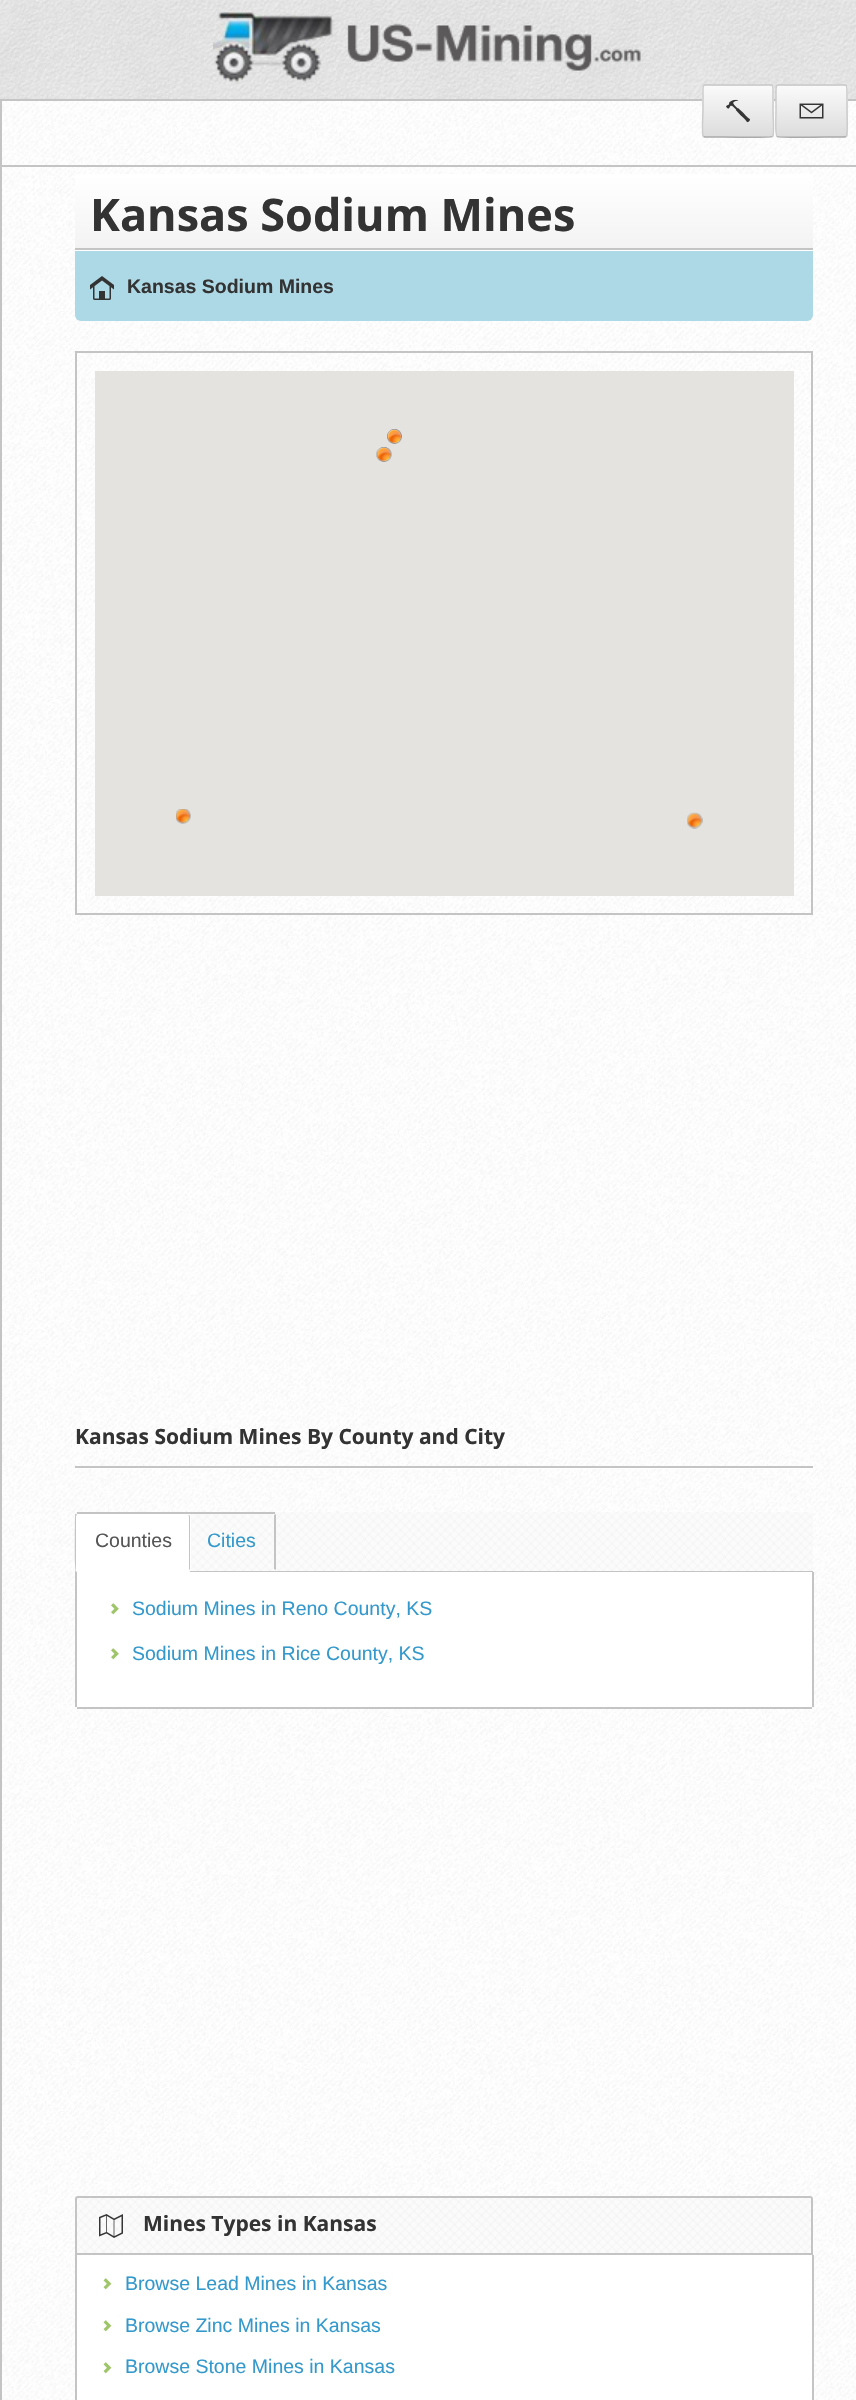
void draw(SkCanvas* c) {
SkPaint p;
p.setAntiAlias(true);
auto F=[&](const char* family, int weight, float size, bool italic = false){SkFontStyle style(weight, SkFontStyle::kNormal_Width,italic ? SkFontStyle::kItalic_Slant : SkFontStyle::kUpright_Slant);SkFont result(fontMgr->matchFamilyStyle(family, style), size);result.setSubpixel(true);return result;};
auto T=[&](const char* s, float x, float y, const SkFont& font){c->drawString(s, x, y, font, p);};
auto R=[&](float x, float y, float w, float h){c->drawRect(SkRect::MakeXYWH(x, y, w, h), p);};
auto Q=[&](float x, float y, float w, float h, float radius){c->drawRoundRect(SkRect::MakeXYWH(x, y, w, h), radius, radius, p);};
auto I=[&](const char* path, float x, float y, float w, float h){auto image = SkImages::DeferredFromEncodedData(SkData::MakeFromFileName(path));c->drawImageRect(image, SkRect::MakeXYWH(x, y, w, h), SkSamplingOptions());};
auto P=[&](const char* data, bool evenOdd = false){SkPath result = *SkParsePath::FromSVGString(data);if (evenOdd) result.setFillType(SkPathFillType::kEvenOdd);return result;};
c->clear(0xffffffff);
I("1.png",0,0,856,99);
I("5.png",2,101,854,2299);
p.setStroke(true);
p.setStrokeWidth(2);
p.setColor(0xffc4c4c4);
c->drawRect(SkRect::MakeXYWH(1,100,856,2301),p);
p.setStroke(false);
R(0,165,856,2);
I("2.png",213,12,428,71);
c->save();
c->clipPath(P("M705 84h66c1.5 0 3 1.5 3 3v48c0 1.5-1.5 3-3 3h-66c-1.5 0-3-1.5-3-3v-48c0-1.5 1.5-3 3-3z"),true);
{
const SkColor colors[] = {0xfffafafa,0xffdcdcdc};
const float stops[] = {0,1};
const SkPoint ends[] = {{738,34}, {738,86}};
p.setShader(SkGradientShader::MakeLinear(ends, colors, stops, 2, SkTileMode::kClamp));
p.setAlpha(255);
}
R(702,84,72,2);
{
const SkColor colors[] = {0xfffafafa,0xffdcdcdc};
const float stops[] = {0,1};
const SkPoint ends[] = {{738,86}, {738,137}};
p.setShader(SkGradientShader::MakeLinear(ends, colors, stops, 2, SkTileMode::kClamp));
p.setAlpha(255);
}
R(702,86,72,51);
{
const SkColor colors[] = {0xfffafafa,0xffdcdcdc};
const float stops[] = {0,1};
const SkPoint ends[] = {{738,137}, {738,188}};
p.setShader(SkGradientShader::MakeLinear(ends, colors, stops, 2, SkTileMode::kClamp));
p.setAlpha(255);
}
R(702,137,72,1);
c->restore();
p.setStroke(true);
p.setStrokeWidth(1.5);
p.setShader(nullptr);
p.setColor(0xffaaaaaa);
c->drawPath(P("M772.5 136.5c-2 1.5-50.5 .5-56.5 .5h-11l-1.5-.5"),p);
p.setColor(0xffcccccc);
c->drawPath(P("M703.5 136.5c-2-1.5-.5-22-.5-25.5v-16c0-13-1.5-10 13-10h44c14.5 0 13-3 13 10v16c0 3.5 1.5 24-.5 25.5"),p);
I("3.png",726,99,24,24);
c->save();
c->clipPath(P("M779 84h66c1.5 0 3 1.5 3 3v48c0 1.5-1.5 3-3 3h-66c-1.5 0-3-1.5-3-3v-48c0-1.5 1.5-3 3-3z"),true);
p.setStroke(false);
{
const SkColor colors[] = {0xfffafafa,0xffdcdcdc};
const float stops[] = {0,1};
const SkPoint ends[] = {{812,34}, {812,86}};
p.setShader(SkGradientShader::MakeLinear(ends, colors, stops, 2, SkTileMode::kClamp));
p.setAlpha(255);
}
R(776,84,72,2);
{
const SkColor colors[] = {0xfffafafa,0xffdcdcdc};
const float stops[] = {0,1};
const SkPoint ends[] = {{812,86}, {812,137}};
p.setShader(SkGradientShader::MakeLinear(ends, colors, stops, 2, SkTileMode::kClamp));
p.setAlpha(255);
}
R(776,86,72,51);
{
const SkColor colors[] = {0xfffafafa,0xffdcdcdc};
const float stops[] = {0,1};
const SkPoint ends[] = {{812,137}, {812,188}};
p.setShader(SkGradientShader::MakeLinear(ends, colors, stops, 2, SkTileMode::kClamp));
p.setAlpha(255);
}
R(776,137,72,1);
c->restore();
p.setStroke(true);
p.setShader(nullptr);
p.setColor(0xffaaaaaa);
c->drawPath(P("M846 136.5l-1.5 .5h-11c-6 0-54.5 1-56.5-.5"),p);
p.setColor(0xffcccccc);
c->drawPath(P("M777 136.5c-2-1.5-1-22-1-25.5v-16c0-13-1-10 13.5-10h44c14.5 0 13.5-3 13.5 10v16c0 3.5 1 24-1 25.5"),p);
I("4.png",799,103,25,16);
p.setStroke(false);
p.setColor(0xffadd8e6);
Q(75,174,738,147,6);
p.setColor(0xffffffff);
R(75,250,738,1);
{
const SkColor colors[] = {0xffffffff,0xfff3f3f3};
const float stops[] = {.01,1};
const SkPoint ends[] = {{444,174}, {444,248}};
p.setShader(SkGradientShader::MakeLinear(ends, colors, stops, 2, SkTileMode::kClamp));
p.setAlpha(255);
}
R(75,174,738,74);
p.setShader(nullptr);
p.setColor(0xffc4c4c4);
R(75,248,738,2);
auto f1 = F("Open Sans",700,45);
p.setColor(0xff333333);
T("Kansas Sodium Mines",90,231,f1);
I("6.png",90,276,24,24);
auto f2 = F("Liberation Sans",700,19.5);
T("Kansas Sodium Mines",127,293,f2);
p.setStroke(true);
p.setStrokeWidth(2);
p.setColor(0xffc4c4c4);
c->drawRect(SkRect::MakeXYWH(76,352,736,562),p);
p.setStroke(false);
p.setColor(0xffe5e3df);
R(95,371,699,525);
I("7.png",387,429,15,15);
I("8.png",376,447,16,15);
I("9.png",176,809,15,15);
I("10.png",687,812,16,17);
p.setColor(0xffffffff);
R(75,1468,738,1);
p.setColor(0xffc4c4c4);
R(75,1466,738,2);
auto f3 = F("Open Sans",700,21);
p.setColor(0xff333333);
T("Kansas Sodium Mines By County and City",75,1444,f3);
I("11.png",75,1512,738,59);
p.setColor(0xffc4c4c4);
R(75,1571,738,1);
R(75,1514,2,58);
R(77,1512,198,2);
p.setColor(0xffffffff);
Q(75,1514,116,58,3);
p.setColor(0xffc4c4c4);
c->drawPath(P("M190 1571v-55l-1-1l-1 1h1v53z"),p);
p.setColor(0xffffffff);
c->drawPath(P("M78 1572h110c1 0 1 0 2-1l-1-2h-113v2z"),p);
p.setColor(0xffc4c4c4);
c->drawPath(P("M75 1516c0 6-1 53 1 55v-2v-53l1-1l-1-1z"),p);
auto f4 = F("Liberation Sans",400,19.5);
p.setColor(0xff555555);
T("Counties",95,1547,f4);
p.setColor(0xffc4c4c4);
c->drawPath(P("M276 1514v56l-2-1v-54z"),p);
p.setColor(0xff3399cc);
T("Cities",207,1547,f4);
p.setColor(0xffffffff);
c->drawPath(P("M75 1572h738v134c0 1.5-1.5 3-3 3h-732c-1.5 0-3-1.5-3-3z"),p);
p.setColor(0xffc4c4c4);
R(812,1572,2,135);
R(77,1707,735,2);
R(75,1572,2,135);
I("12.png",111,1603,8,12);
p.setColor(0xff3399cc);
T("Sodium Mines in Reno County, KS",132,1615,f4);
I("12.png",111,1648,8,12);
T("Sodium Mines in Rice County, KS",132,1660,f4);
I("13.png",75,2196,738,57);
p.setStroke(true);
p.setColor(0xffc4c4c4);
c->drawPath(P("M78 2197h732c1 0 2 1 2 2v55h-736v-55c0-1 1-2 2-2z"),p);
I("14.png",99,2214,24,24);
p.setStroke(false);
p.setColor(0xff333333);
T("Mines Types in Kansas",143,2231,f3);
p.setColor(0xffffffff);
R(77,2255,735,145);
p.setColor(0xffc4c4c4);
R(812,2255,2,145);
R(75,2255,2,145);
I("15.png",103,2278,9,12);
p.setColor(0xff3399cc);
T("Browse Lead Mines in Kansas",125,2290,f4);
I("15.png",103,2320,9,12);
T("Browse Zinc Mines in Kansas",125,2332,f4);
I("15.png",103,2362,9,12);
T("Browse Stone Mines in Kansas",125,2373,f4);
}
